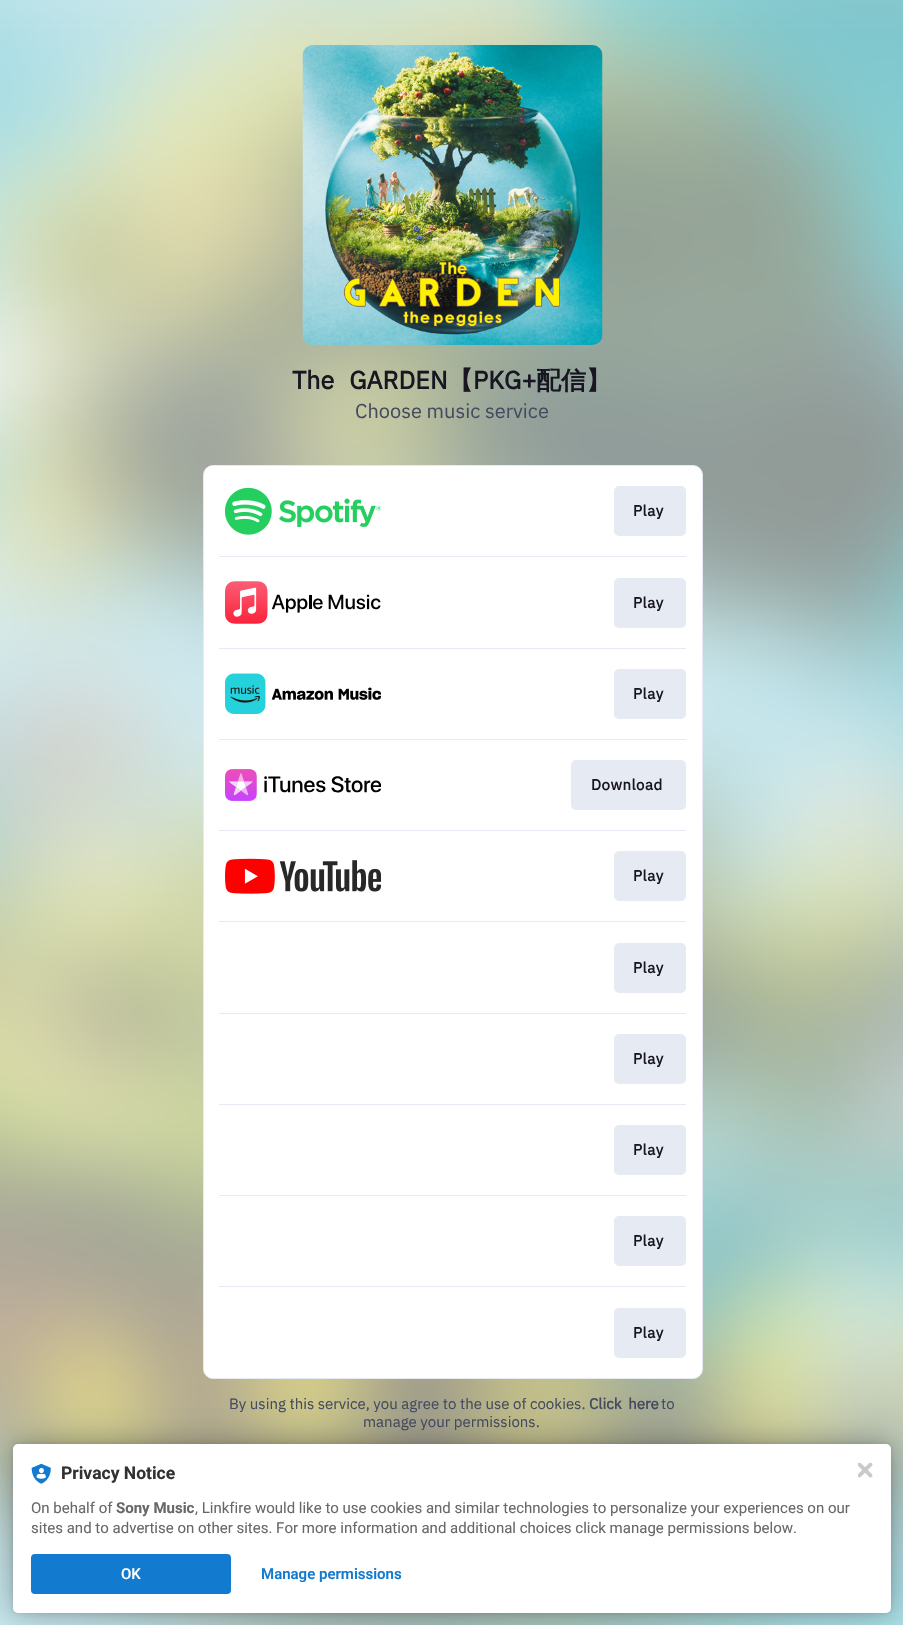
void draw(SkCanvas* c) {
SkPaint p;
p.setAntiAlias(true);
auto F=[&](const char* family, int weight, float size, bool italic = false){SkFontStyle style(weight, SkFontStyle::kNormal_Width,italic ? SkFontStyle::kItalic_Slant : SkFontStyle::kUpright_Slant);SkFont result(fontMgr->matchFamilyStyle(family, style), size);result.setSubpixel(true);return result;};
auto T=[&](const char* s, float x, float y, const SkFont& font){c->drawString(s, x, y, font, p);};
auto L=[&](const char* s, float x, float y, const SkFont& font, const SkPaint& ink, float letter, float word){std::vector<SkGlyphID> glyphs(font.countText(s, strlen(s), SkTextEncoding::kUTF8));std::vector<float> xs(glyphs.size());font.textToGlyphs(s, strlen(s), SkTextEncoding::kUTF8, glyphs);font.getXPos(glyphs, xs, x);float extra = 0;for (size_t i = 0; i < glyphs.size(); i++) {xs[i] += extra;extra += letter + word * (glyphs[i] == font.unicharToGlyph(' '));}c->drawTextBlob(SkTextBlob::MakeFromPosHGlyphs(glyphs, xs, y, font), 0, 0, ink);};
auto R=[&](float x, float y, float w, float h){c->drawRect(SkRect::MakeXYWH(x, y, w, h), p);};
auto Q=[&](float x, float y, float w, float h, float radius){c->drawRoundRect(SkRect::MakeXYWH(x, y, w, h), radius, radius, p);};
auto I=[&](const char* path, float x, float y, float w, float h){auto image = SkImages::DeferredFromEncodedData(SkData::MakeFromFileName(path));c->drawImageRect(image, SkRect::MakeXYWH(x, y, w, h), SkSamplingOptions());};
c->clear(0xffffffff);
I("1.png",0,0,903,1625);
I("2.png",302,45,301,300);
auto f1 = F("IBM Plex Sans",700,25);
p.setColor(0xff181721);
L("The GARDEN",292,389,f1,p,0,9);
auto f2 = F("WenQuanYi Zen Hei",700,25);
T("【",448,389,f2);
T("PKG+",473,389,f1);
T("配信】",536,389,f2);
auto f3 = F("IBM Plex Sans",400,20);
p.setColor(0xff454b5f);
T("Choose music service",355,418,f3);
p.setColor(0xffffffff);
c->drawRoundRect(SkRect::MakeXYWH(203.5,465.5,499,913),9.5,9.5,p);
p.setStroke(true);
p.setStrokeWidth(1);
p.setColor(0xffe6eaf2);
c->drawRoundRect(SkRect::MakeXYWH(203.5,465.5,499,913),9.5,9.5,p);
p.setStroke(false);
p.setColor(0xffffffff);
Q(204,466,497,912,9);
I("3.png",225,487,156,48);
p.setColor(0xffe6eaf2);
Q(614,486,72,50,5);
auto f4 = F("IBM Plex Sans",700,15);
p.setColor(0xff181721);
L("Play",633,516,f4,p,.5,0);
p.setColor(0xffe6eaf2);
R(219,556,467,1);
I("4.png",225,581,156,43);
Q(614,578,72,50,5);
p.setColor(0xff181721);
L("Play",633,608,f4,p,.5,0);
p.setColor(0xffe6eaf2);
R(219,648,467,1);
I("5.png",225,673,156,41);
Q(614,669,72,50,5);
p.setColor(0xff181721);
L("Play",633,699,f4,p,.5,0);
p.setColor(0xffe6eaf2);
R(219,739,467,1);
I("6.png",225,769,156,32);
Q(571,760,115,50,5);
p.setColor(0xff181721);
L("Download",591,790,f4,p,.5,0);
p.setColor(0xffe6eaf2);
R(219,830,467,1);
I("7.png",225,858,156,36);
Q(614,851,72,50,5);
p.setColor(0xff181721);
L("Play",633,881,f4,p,.5,0);
p.setColor(0xffe6eaf2);
R(219,921,467,1);
Q(614,943,72,50,5);
p.setColor(0xff181721);
L("Play",633,973,f4,p,.5,0);
p.setColor(0xffe6eaf2);
R(219,1013,467,1);
Q(614,1034,72,50,5);
p.setColor(0xff181721);
L("Play",633,1064,f4,p,.5,0);
p.setColor(0xffe6eaf2);
R(219,1104,467,1);
Q(614,1125,72,50,5);
p.setColor(0xff181721);
L("Play",633,1155,f4,p,.5,0);
p.setColor(0xffe6eaf2);
R(219,1195,467,1);
Q(614,1216,72,50,5);
p.setColor(0xff181721);
L("Play",633,1246,f4,p,.5,0);
p.setColor(0xffe6eaf2);
R(219,1286,467,1);
Q(614,1308,72,50,5);
p.setColor(0xff181721);
L("Play",633,1338,f4,p,.5,0);
auto f5 = F("IBM Plex Sans",400,15);
p.setColor(0xff454b5f);
T("By using this service, you agree to the use of cookies.",229,1409,f5);
L("Click here",589,1409,f4,p,0,3);
T("to",661,1409,f5);
T("manage your permissions.",363,1427,f5);
p.setColor(0x1f000000);
p.setMaskFilter(SkMaskFilter::MakeBlur(kNormal_SkBlurStyle, 2.5));
c->drawRoundRect(SkRect::MakeXYWH(13,1444,878,169),5,5,p);
p.setMaskFilter(nullptr);
p.setColor(0x4d000000);
p.setMaskFilter(SkMaskFilter::MakeBlur(kNormal_SkBlurStyle, 15));
c->drawRoundRect(SkRect::MakeXYWH(13,1444,878,169),5,5,p);
p.setMaskFilter(nullptr);
p.setColor(0xffffffff);
Q(13,1444,878,169,5);
I("8.png",31,1464,20,20);
auto f6 = F("Roboto",700,17.5);
p.setColor(0xff323232);
T("Privacy Notice",61,1479,f6);
auto f7 = F("Roboto",400,15);
p.setColor(0xff686868);
T("On behalf of",31,1513,f7);
auto f8 = F("Roboto",700,15);
T("Sony Music",116,1513,f8);
T(", Linkfire would like to use cookies and similar technologies to personalize your experiences on our",195,1513,f7);
T("sites and to advertise on other sites. For more information and additional choices click manage permissions below.",31,1533,f7);
p.setColor(0xff137bcf);
Q(31,1554,200,40,4);
auto f9 = F("Roboto",500,15);
p.setColor(0xffffffff);
T("OK",121,1579,f9);
auto f10 = F("Roboto",600,15);
p.setColor(0xff137bcf);
T("Manage permissions",261,1579,f10);
I("9.png",858,1463,15,15);
}
